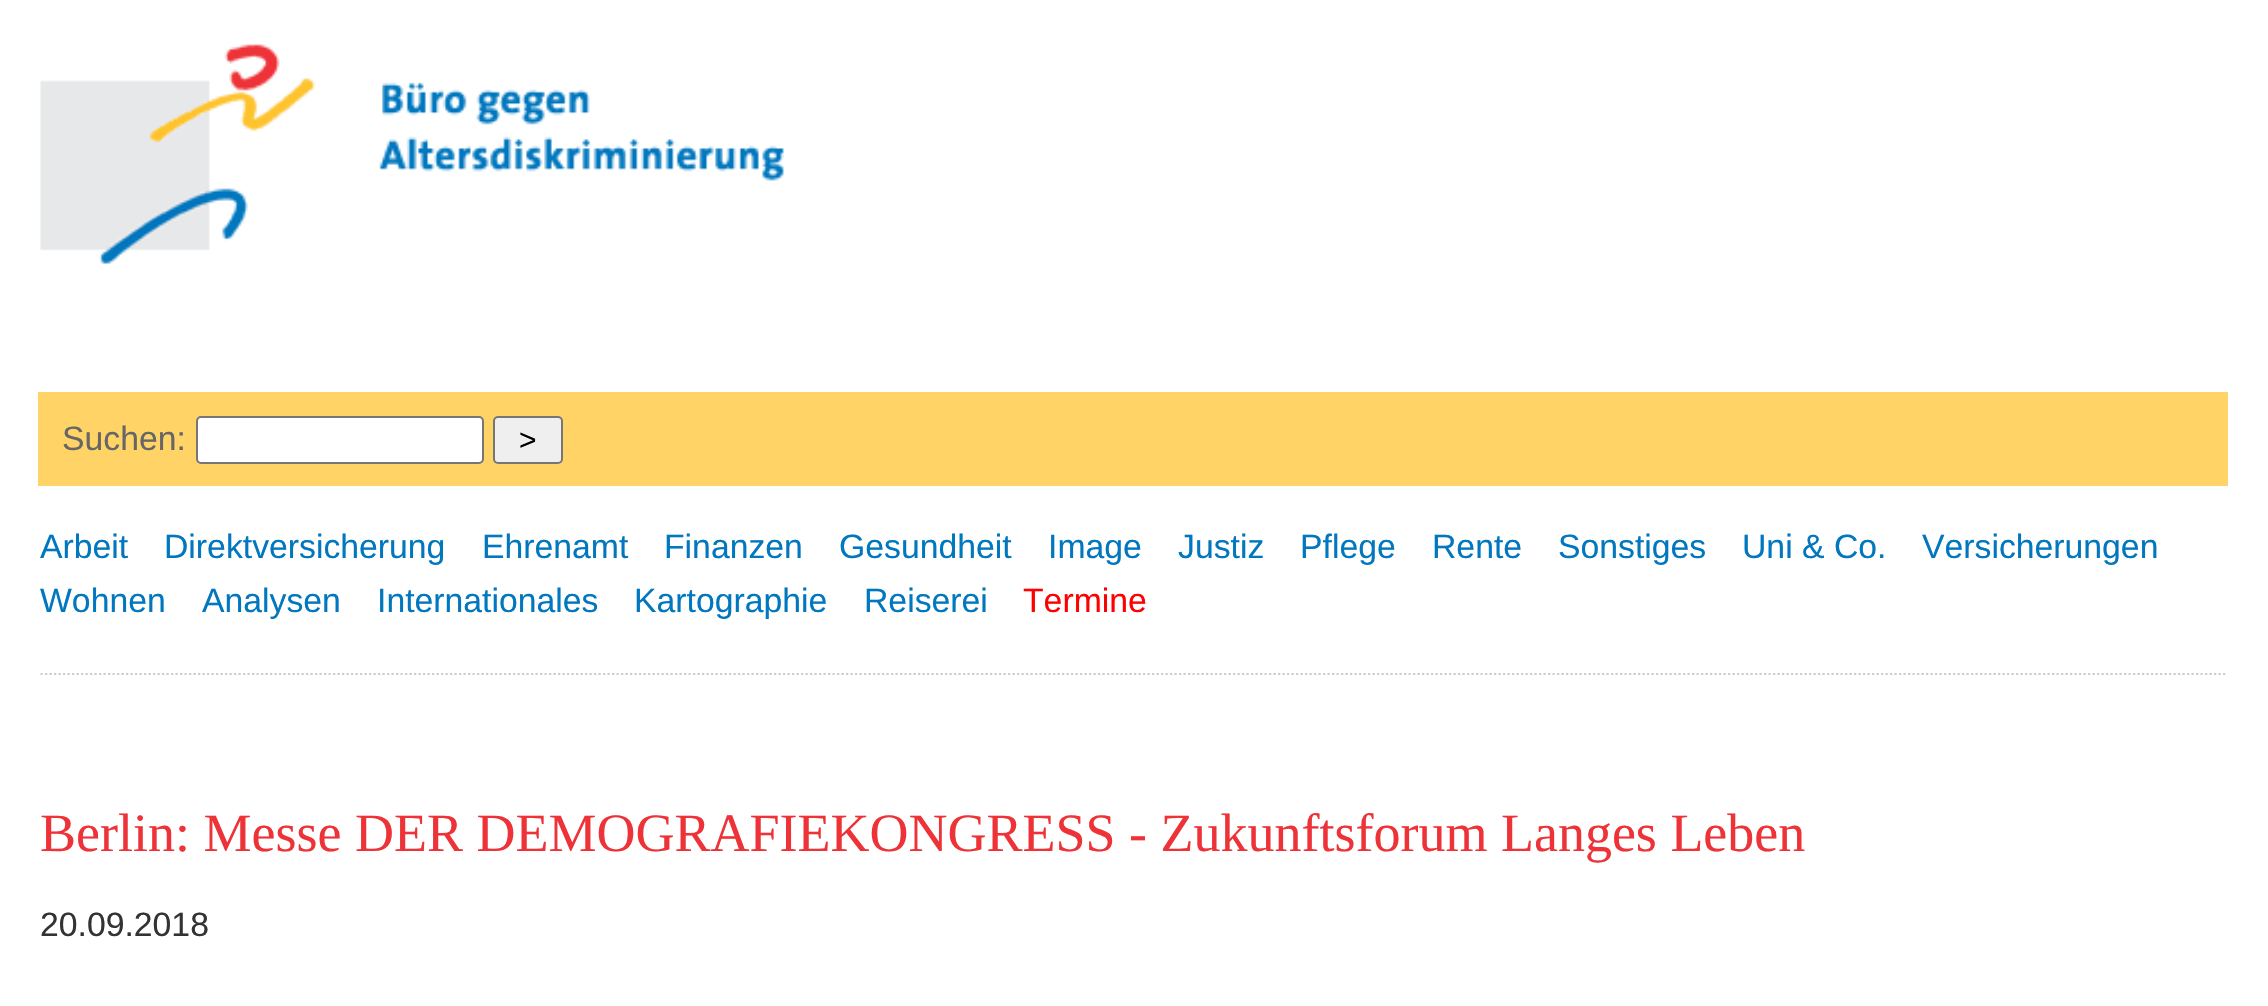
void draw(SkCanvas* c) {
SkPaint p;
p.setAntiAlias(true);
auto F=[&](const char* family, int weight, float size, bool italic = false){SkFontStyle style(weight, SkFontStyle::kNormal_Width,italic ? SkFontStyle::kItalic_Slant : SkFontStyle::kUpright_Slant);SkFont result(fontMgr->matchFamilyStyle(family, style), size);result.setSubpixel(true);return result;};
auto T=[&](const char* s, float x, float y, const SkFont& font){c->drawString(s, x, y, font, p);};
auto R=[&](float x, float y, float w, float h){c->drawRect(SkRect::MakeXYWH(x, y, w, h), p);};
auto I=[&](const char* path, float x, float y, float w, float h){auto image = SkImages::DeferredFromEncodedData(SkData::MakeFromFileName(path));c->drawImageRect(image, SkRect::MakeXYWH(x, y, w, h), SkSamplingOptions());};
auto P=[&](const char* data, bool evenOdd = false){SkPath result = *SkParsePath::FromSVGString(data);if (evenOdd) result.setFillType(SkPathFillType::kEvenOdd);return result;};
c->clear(0xffffffff);
I("1.png",40,44,744,220);
p.setColor(0xffffd366);
R(38,392,2190,94);
auto f1 = F("Liberation Sans",400,33.75);
p.setColor(0xff666666);
T("Suchen:",62,450,f1);
p.setColor(0xffffffff);
c->drawRoundRect(SkRect::MakeXYWH(197,417,286,46),4,4,p);
p.setStroke(true);
p.setStrokeWidth(2);
p.setColor(0xff767676);
c->drawRoundRect(SkRect::MakeXYWH(197,417,286,46),4,4,p);
p.setStroke(false);
p.setColor(0xffefefef);
c->drawRoundRect(SkRect::MakeXYWH(494,417,68,46),4,4,p);
p.setStroke(true);
p.setColor(0xff767676);
c->drawRoundRect(SkRect::MakeXYWH(494,417,68,46),4,4,p);
auto f2 = F("Liberation Sans",400,30);
p.setStroke(false);
p.setColor(0xff000000);
T(">",519,450,f2);
p.setStroke(true);
p.setStrokeWidth(2.2);
p.setColor(0xffcccccc);
p.setPathEffect(SkDashPathEffect::Make({{2.25f,2.25f}}, 0));
c->drawPath(P("M40.5 674h2187"),p);
p.setPathEffect(nullptr);
p.setStroke(false);
p.setColor(0xff0077be);
T("Arbeit",40,558,f1);
T("Direktversicherung",164,558,f1);
T("Ehrenamt",482,558,f1);
T("Finanzen",664,558,f1);
T("Gesundheit",839,558,f1);
T("Image",1048,558,f1);
T("Justiz",1178,558,f1);
T("Pflege",1300,558,f1);
T("Rente",1432,558,f1);
T("Sonstiges",1558,558,f1);
T("Uni & Co.",1742,558,f1);
T("Versicherungen",1922,558,f1);
T("Wohnen",40,612,f1);
T("Analysen",202,612,f1);
T("Internationales",377,612,f1);
T("Kartographie",634,612,f1);
T("Reiserei",864,612,f1);
p.setColor(0xffff0000);
T("Termine",1023,612,f1);
auto f3 = F("Liberation Serif",400,54);
p.setColor(0xffee3338);
T("Berlin: Messe DER DEMOGRAFIEKONGRESS - Zukunftsforum Langes Leben",40,851,f3);
p.setColor(0xff333333);
T("20.09.2018",40,936,f1);
}
